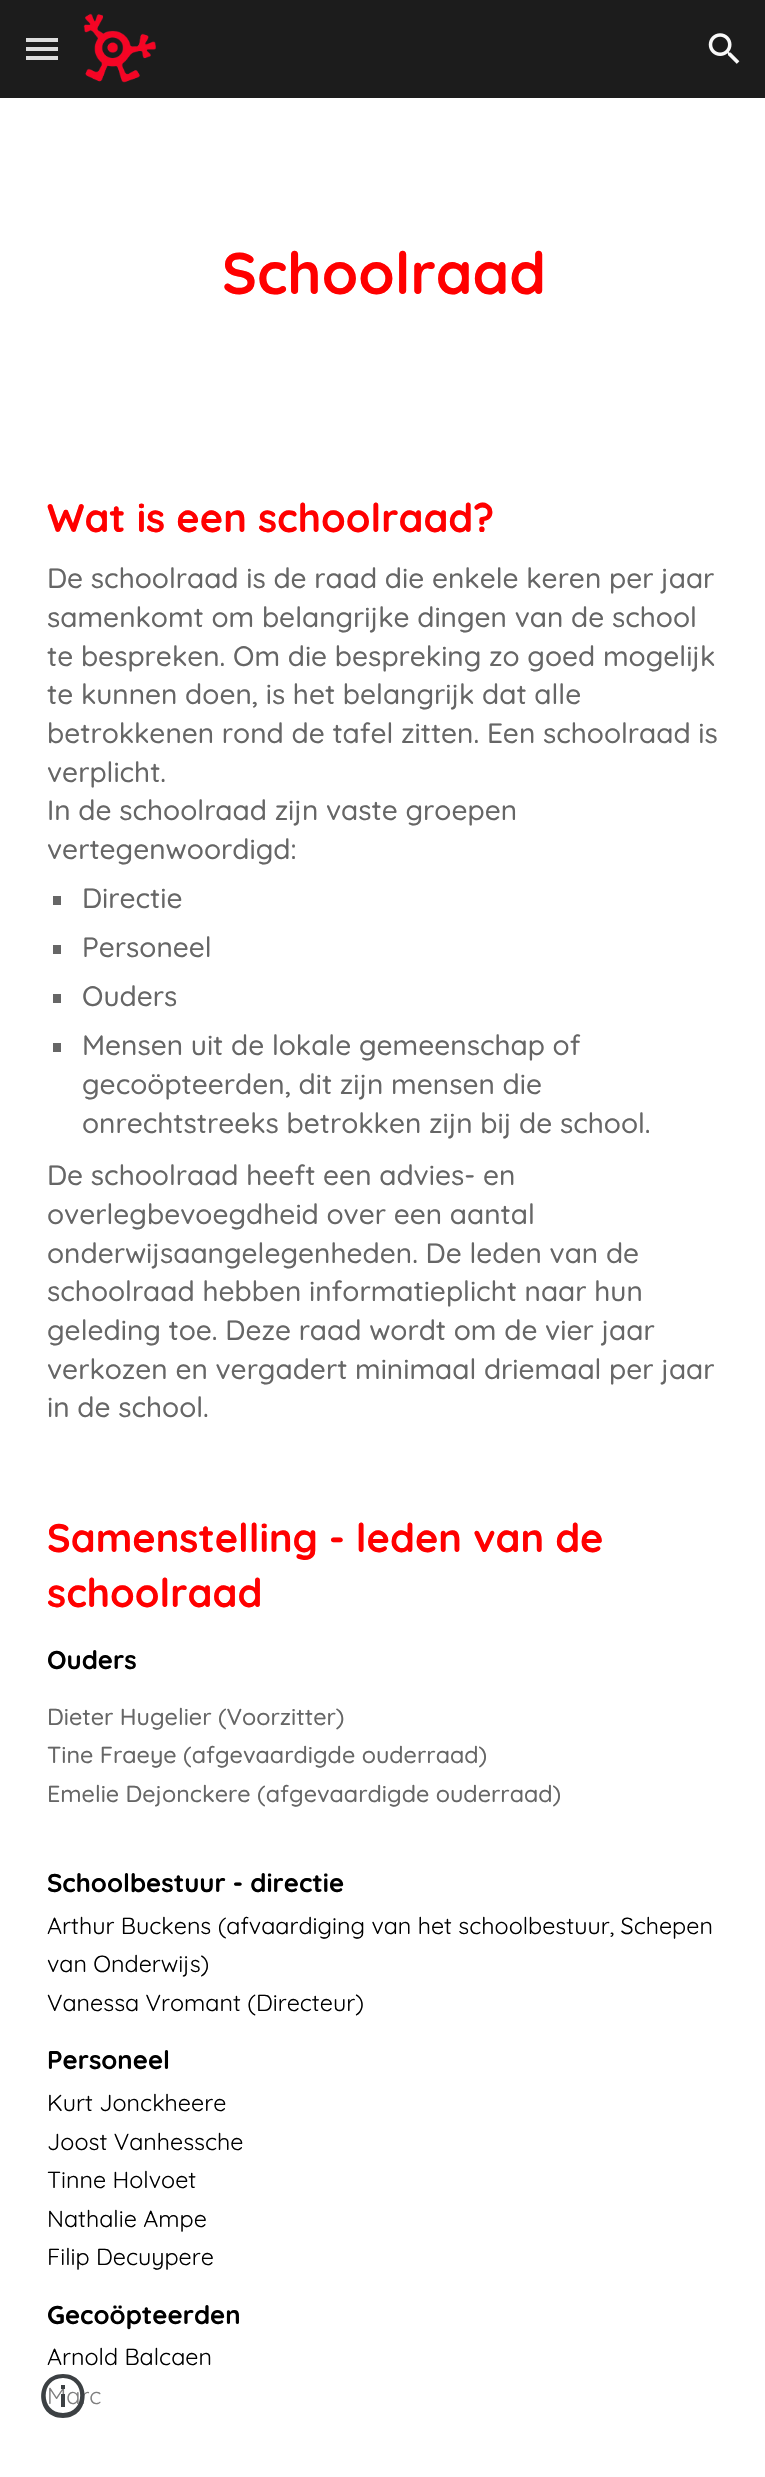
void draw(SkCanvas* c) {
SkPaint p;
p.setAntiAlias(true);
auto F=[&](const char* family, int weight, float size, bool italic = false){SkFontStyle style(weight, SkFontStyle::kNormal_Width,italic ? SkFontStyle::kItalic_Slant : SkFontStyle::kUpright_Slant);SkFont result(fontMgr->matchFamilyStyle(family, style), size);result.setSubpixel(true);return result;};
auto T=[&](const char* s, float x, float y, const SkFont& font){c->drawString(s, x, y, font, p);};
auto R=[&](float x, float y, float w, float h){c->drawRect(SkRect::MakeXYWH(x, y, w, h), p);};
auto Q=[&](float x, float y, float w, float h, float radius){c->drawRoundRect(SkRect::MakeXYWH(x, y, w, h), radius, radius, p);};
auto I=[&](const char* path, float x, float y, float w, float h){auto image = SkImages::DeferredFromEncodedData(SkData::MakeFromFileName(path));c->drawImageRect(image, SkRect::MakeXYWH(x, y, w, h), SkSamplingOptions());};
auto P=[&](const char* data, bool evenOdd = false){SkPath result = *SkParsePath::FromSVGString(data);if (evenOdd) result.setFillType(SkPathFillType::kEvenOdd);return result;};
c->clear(0xffffffff);
p.setColor(0xff1c1c1c);
R(0,0,765,98);
I("1.png",83,13,73,70);
I("2.png",708,33,32,31);
p.setColor(0xffdddddd);
R(26,38,32,4);
R(26,47,32,4);
R(26,56,32,4);
auto f1 = F("Quicksand",700,58.5);
p.setColor(0xffff0000);
T("Schoolraad",222,294,f1);
auto f2 = F("Quicksand",700,39.7);
T("Wat is een schoolraad?",47,532,f2);
auto f3 = F("Quicksand",500,28);
p.setColor(0xff666666);
T("De schoolraad is de raad die enkele keren per jaar",47,588,f3);
T("samenkomt om belangrijke dingen van de school",47,627,f3);
T("te bespreken. Om die bespreking zo goed mogelijk",47,666,f3);
T("te kunnen doen, is het belangrijk dat alle",47,704,f3);
T("betrokkenen rond de tafel zitten. Een schoolraad is",47,743,f3);
T("verplicht.",47,782,f3);
T("In de schoolraad zijn vaste groepen",47,820,f3);
T("vertegenwoordigd:",47,859,f3);
R(53,896,8,9);
T("Directie",82,908,f3);
R(53,945,8,9);
T("Personeel",82,957,f3);
R(53,994,8,9);
T("Ouders",82,1006,f3);
R(53,1043,8,9);
T("Mensen uit de lokale gemeenschap of",82,1055,f3);
T("gecoöpteerden, dit zijn mensen die",82,1094,f3);
T("onrechtstreeks betrokken zijn bij de school.",82,1133,f3);
T("De schoolraad heeft een advies- en",47,1185,f3);
T("overlegbevoegdheid over een aantal",47,1224,f3);
T("onderwijsaangelegenheden. De leden van de",47,1263,f3);
T("schoolraad hebben informatieplicht naar hun",47,1301,f3);
T("geleding toe. Deze raad wordt om de vier jaar",47,1340,f3);
T("verkozen en vergadert minimaal driemaal per jaar",47,1379,f3);
T("in de school.",47,1417,f3);
p.setColor(0xffff0000);
T("Samenstelling - leden van de",47,1552,f2);
T("schoolraad",47,1607,f2);
auto f4 = F("Quicksand",700,25.75);
p.setColor(0xff000000);
T("Ouders",47,1669,f4);
auto f5 = F("Quicksand",500,23.3);
p.setColor(0xff666666);
T("Dieter Hugelier (Voorzitter)",47,1725,f5);
T("Tine Fraeye (afgevaardigde ouderraad)",47,1763,f5);
T("Emelie Dejonckere (afgevaardigde ouderraad)",47,1802,f5);
p.setColor(0xff000000);
T("Schoolbestuur - directie",47,1892,f4);
auto f6 = F("Quicksand",400,23.3);
T("Arthur Buckens (afvaardiging van het schoolbestuur, Schepen",47,1934,f6);
T("van Onderwijs)",47,1972,f6);
T("Vanessa Vromant (Directeur)",47,2011,f6);
T("Personeel",47,2069,f4);
T("Kurt Jonckheere",47,2111,f6);
T("Joost Vanhessche",47,2150,f6);
T("Tinne Holvoet",47,2188,f6);
T("Nathalie Ampe",47,2227,f6);
T("Filip Decuypere",47,2265,f6);
T("Gecoöpteerden",47,2324,f4);
T("Arnold Balcaen",47,2365,f6);
T("Marc",47,2404,f6);
p.setColor(0x80ffffff);
Q(21,2366,84,84,30);
p.setColor(0xff3c4043);
c->drawPath(P("M61 2407h4v-13h-4zm2-33c-29 0-29 44 0 44c29 0 29-44 0-44zm0 39c-23 0-23-35 0-35c23 0 23 35 0 35zm-2-24h4v-4h-4z"),p);
}
